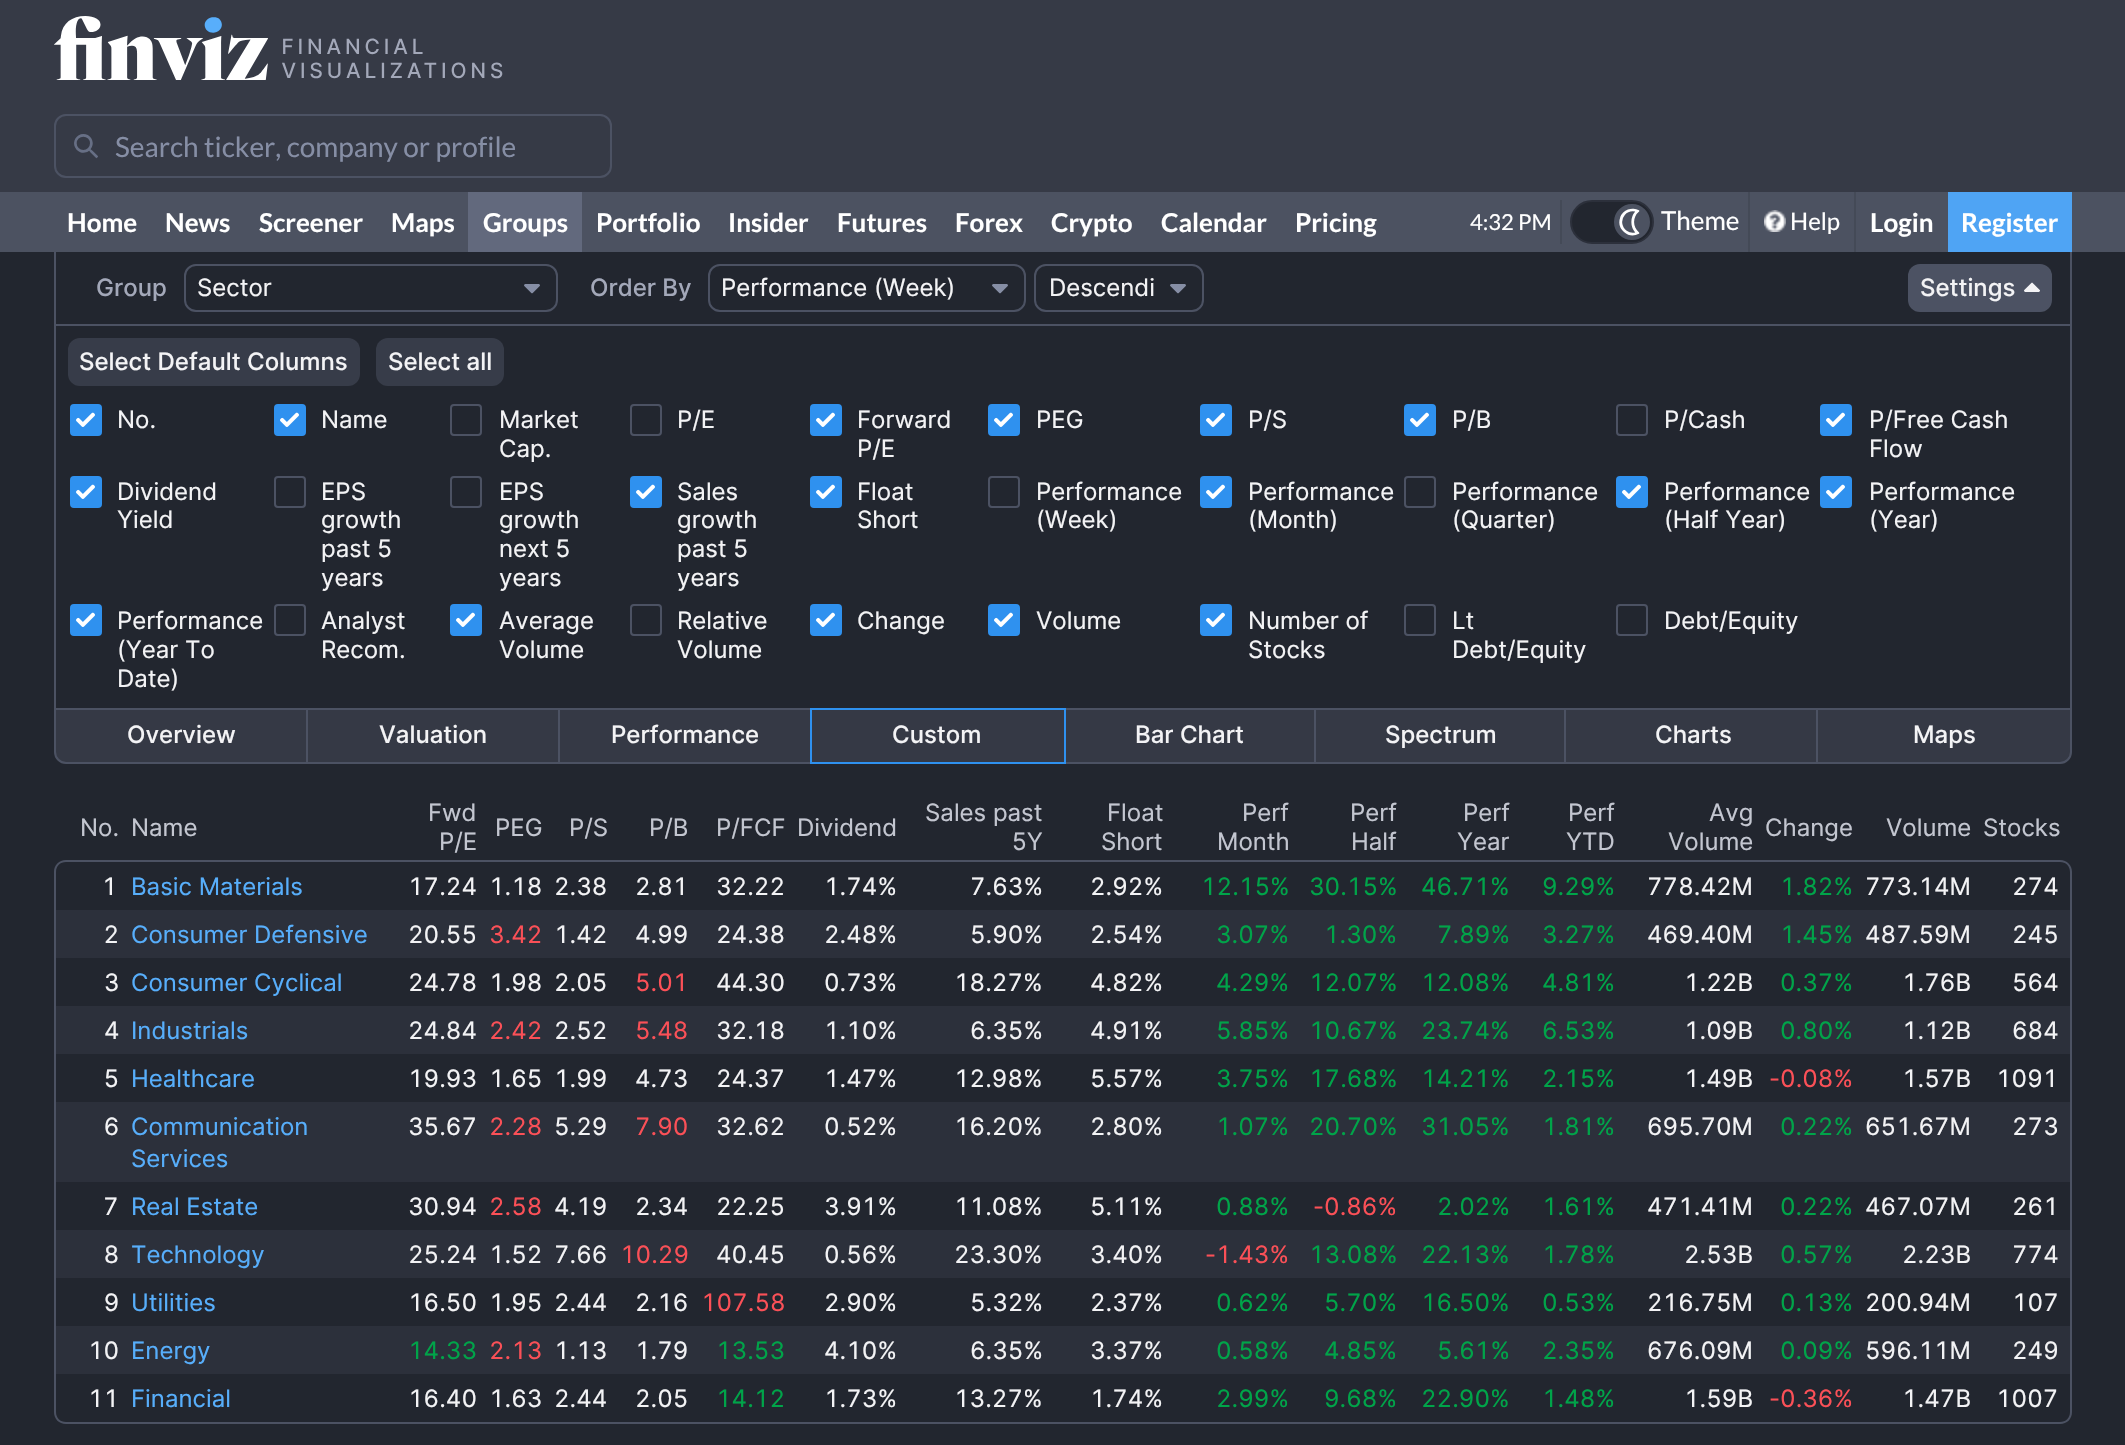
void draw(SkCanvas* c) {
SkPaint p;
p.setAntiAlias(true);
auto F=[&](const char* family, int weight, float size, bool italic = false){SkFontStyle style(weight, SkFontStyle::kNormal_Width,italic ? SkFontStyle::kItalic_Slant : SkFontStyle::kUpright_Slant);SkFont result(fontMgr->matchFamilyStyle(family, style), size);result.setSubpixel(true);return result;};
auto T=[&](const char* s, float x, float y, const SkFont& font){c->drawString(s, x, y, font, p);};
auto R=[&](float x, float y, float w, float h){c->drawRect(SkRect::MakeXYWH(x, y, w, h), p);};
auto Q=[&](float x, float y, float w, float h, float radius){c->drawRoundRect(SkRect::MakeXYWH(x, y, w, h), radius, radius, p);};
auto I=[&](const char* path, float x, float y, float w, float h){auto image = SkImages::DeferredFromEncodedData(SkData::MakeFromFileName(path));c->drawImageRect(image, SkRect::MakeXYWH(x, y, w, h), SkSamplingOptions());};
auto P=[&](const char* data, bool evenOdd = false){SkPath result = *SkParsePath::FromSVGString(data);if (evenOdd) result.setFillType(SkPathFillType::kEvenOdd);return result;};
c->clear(0xff22262f);
p.setColor(0xff363a46);
R(0,0,2125,192);
I("1.png",54,16,449,64);
p.setStroke(true);
p.setStrokeWidth(2);
p.setColor(0xff4c5263);
c->drawRoundRect(SkRect::MakeXYWH(55,115,556,62),11,11,p);
I("2.png",74,134,24,25);
auto f1 = F("Lato",400,28);
p.setStroke(false);
p.setColor(0xff868ea5);
T("Search ticker, company or profile",115,157,f1);
p.setColor(0xff4c5261);
R(0,192,2125,60);
auto f2 = F("Lato",700,26);
p.setColor(0xffffffff);
T("Home",67,232,f2);
T("News",165,232,f2);
T("Screener",259,232,f2);
T("Maps",391,232,f2);
p.setColor(0xff62697d);
R(468,192,114,60);
p.setColor(0xffffffff);
T("Groups",483,232,f2);
T("Portfolio",596,232,f2);
T("Insider",728,232,f2);
T("Futures",837,232,f2);
T("Forex",955,232,f2);
T("Crypto",1051,232,f2);
T("Calendar",1161,232,f2);
T("Pricing",1295,232,f2);
auto f3 = F("Lato",400,22);
T("4:32 PM",1470,230,f3);
p.setColor(0xff444a57);
R(1560,200,2,44);
p.setColor(0xff22262f);
c->drawRoundRect(SkRect::MakeXYWH(1571,201,82,42),21,21,p);
p.setStroke(true);
p.setColor(0xff2c303b);
c->drawRoundRect(SkRect::MakeXYWH(1571,201,82,42),21,21,p);
p.setStroke(false);
p.setColor(0xff4c5261);
c->drawCircle(1632,222,19,p);
p.setStroke(true);
p.setColor(0xff22262f);
c->drawCircle(1632,222,19,p);
I("3.png",1619,208,21,28);
auto f4 = F("Lato",400,26);
p.setStroke(false);
p.setColor(0xffffffff);
T("Theme",1661,230,f4);
p.setColor(0xff444a57);
R(1748,192,2,60);
I("4.png",1764,210,22,22);
auto f5 = F("Lato",400,24);
p.setColor(0xffffffff);
T("Help",1790,230,f5);
p.setColor(0xff444a57);
R(1854,192,2,60);
p.setColor(0xffffffff);
T("Login",1870,232,f2);
p.setColor(0xff4fa4f4);
R(1948,192,124,60);
p.setColor(0xffffffff);
T("Register",1961,232,f2);
p.setColor(0xff4c5263);
R(2070,252,2,72);
R(54,252,2,72);
auto f6 = F("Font",500,24);
p.setColor(0xffa3a8b9);
T("Group",96,296,f6);
I("5.png",524,284,16,10);
p.setStroke(true);
p.setColor(0xff4c5263);
c->drawRoundRect(SkRect::MakeXYWH(185,265,372,46),11,11,p);
auto f7 = F("Font",400,24);
p.setStroke(false);
p.setColor(0xfff3f3f5);
T("Sector",197,296,f7);
p.setColor(0xffa3a8b9);
T("Order By",590,296,f6);
I("5.png",992,284,16,10);
p.setStroke(true);
p.setColor(0xff4c5263);
c->drawRoundRect(SkRect::MakeXYWH(709,265,316,46),11,11,p);
p.setStroke(false);
p.setColor(0xfff3f3f5);
T("Performance (Week)",721,296,f7);
I("5.png",1170,284,16,10);
p.setStroke(true);
p.setColor(0xff4c5263);
c->drawRoundRect(SkRect::MakeXYWH(1035,265,168,46),11,11,p);
p.setStroke(false);
p.setColor(0xfff3f3f5);
T("Descendi",1049,296,f7);
p.setColor(0xff4c5263);
Q(1908,264,144,48,12);
p.setColor(0xfff3f3f5);
T("Settings",1920,296,f6);
I("6.png",2024,282,16,10);
p.setColor(0xff4c5263);
R(54,324,2018,2);
R(2070,324,2,384);
R(54,324,2,384);
p.setColor(0xff373c49);
Q(68,338,292,48,12);
p.setColor(0xfff3f3f5);
T("Select Default Columns",79,370,f6);
p.setColor(0xff373c49);
Q(376,338,128,48,12);
p.setColor(0xfff3f3f5);
T("Select all",388,370,f6);
p.setColor(0xff2f91ef);
c->drawRoundRect(SkRect::MakeXYWH(71,405,30,30),3,3,p);
p.setStroke(true);
c->drawRoundRect(SkRect::MakeXYWH(71,405,30,30),3,3,p);
I("7.png",76,412,19,15);
p.setStroke(false);
p.setColor(0xfff3f3f5);
T("No.",117,428,f7);
p.setColor(0xff2f91ef);
c->drawRoundRect(SkRect::MakeXYWH(275,405,30,30),3,3,p);
p.setStroke(true);
c->drawRoundRect(SkRect::MakeXYWH(275,405,30,30),3,3,p);
I("7.png",280,412,19,15);
p.setStroke(false);
p.setColor(0xfff3f3f5);
T("Name",321,428,f7);
p.setStroke(true);
p.setColor(0xff4c5263);
c->drawRoundRect(SkRect::MakeXYWH(451,405,30,30),3,3,p);
p.setStroke(false);
p.setColor(0xfff3f3f5);
T("Market",499,428,f7);
T("Cap.",499,457,f7);
p.setStroke(true);
p.setColor(0xff4c5263);
c->drawRoundRect(SkRect::MakeXYWH(631,405,30,30),3,3,p);
p.setStroke(false);
p.setColor(0xfff3f3f5);
T("P/E",677,428,f7);
p.setColor(0xff2f91ef);
c->drawRoundRect(SkRect::MakeXYWH(811,405,30,30),3,3,p);
p.setStroke(true);
c->drawRoundRect(SkRect::MakeXYWH(811,405,30,30),3,3,p);
I("7.png",816,412,19,15);
p.setStroke(false);
p.setColor(0xfff3f3f5);
T("Forward",857,428,f7);
T("P/E",857,457,f7);
p.setColor(0xff2f91ef);
c->drawRoundRect(SkRect::MakeXYWH(989,405,30,30),3,3,p);
p.setStroke(true);
c->drawRoundRect(SkRect::MakeXYWH(989,405,30,30),3,3,p);
I("7.png",994,412,19,15);
p.setStroke(false);
p.setColor(0xfff3f3f5);
T("PEG",1036,428,f7);
p.setColor(0xff2f91ef);
c->drawRoundRect(SkRect::MakeXYWH(1201,405,30,30),3,3,p);
p.setStroke(true);
c->drawRoundRect(SkRect::MakeXYWH(1201,405,30,30),3,3,p);
I("7.png",1206,412,19,15);
p.setStroke(false);
p.setColor(0xfff3f3f5);
T("P/S",1248,428,f7);
p.setColor(0xff2f91ef);
c->drawRoundRect(SkRect::MakeXYWH(1405,405,30,30),3,3,p);
p.setStroke(true);
c->drawRoundRect(SkRect::MakeXYWH(1405,405,30,30),3,3,p);
I("7.png",1410,412,19,15);
p.setStroke(false);
p.setColor(0xfff3f3f5);
T("P/B",1452,428,f7);
p.setStroke(true);
p.setColor(0xff4c5263);
c->drawRoundRect(SkRect::MakeXYWH(1617,405,30,30),3,3,p);
p.setStroke(false);
p.setColor(0xfff3f3f5);
T("P/Cash",1664,428,f7);
p.setColor(0xff2f91ef);
c->drawRoundRect(SkRect::MakeXYWH(1821,405,30,30),3,3,p);
p.setStroke(true);
c->drawRoundRect(SkRect::MakeXYWH(1821,405,30,30),3,3,p);
I("7.png",1826,412,19,15);
p.setStroke(false);
p.setColor(0xfff3f3f5);
T("P/Free Cash",1869,428,f7);
T("Flow",1869,457,f7);
p.setColor(0xff2f91ef);
c->drawRoundRect(SkRect::MakeXYWH(71,477,30,30),3,3,p);
p.setStroke(true);
c->drawRoundRect(SkRect::MakeXYWH(71,477,30,30),3,3,p);
I("7.png",76,484,19,15);
p.setStroke(false);
p.setColor(0xfff3f3f5);
T("Dividend",117,500,f7);
T("Yield",117,528,f7);
p.setStroke(true);
p.setColor(0xff4c5263);
c->drawRoundRect(SkRect::MakeXYWH(275,477,30,30),3,3,p);
p.setStroke(false);
p.setColor(0xfff3f3f5);
T("EPS",321,500,f7);
T("growth",321,528,f7);
T("past 5",321,557,f7);
T("years",321,586,f7);
p.setStroke(true);
p.setColor(0xff4c5263);
c->drawRoundRect(SkRect::MakeXYWH(451,477,30,30),3,3,p);
p.setStroke(false);
p.setColor(0xfff3f3f5);
T("EPS",499,500,f7);
T("growth",499,528,f7);
T("next 5",499,557,f7);
T("years",499,586,f7);
p.setColor(0xff2f91ef);
c->drawRoundRect(SkRect::MakeXYWH(631,477,30,30),3,3,p);
p.setStroke(true);
c->drawRoundRect(SkRect::MakeXYWH(631,477,30,30),3,3,p);
I("7.png",636,484,19,15);
p.setStroke(false);
p.setColor(0xfff3f3f5);
T("Sales",677,500,f7);
T("growth",677,528,f7);
T("past 5",677,557,f7);
T("years",677,586,f7);
p.setColor(0xff2f91ef);
c->drawRoundRect(SkRect::MakeXYWH(811,477,30,30),3,3,p);
p.setStroke(true);
c->drawRoundRect(SkRect::MakeXYWH(811,477,30,30),3,3,p);
I("7.png",816,484,19,15);
p.setStroke(false);
p.setColor(0xfff3f3f5);
T("Float",857,500,f7);
T("Short",857,528,f7);
p.setStroke(true);
p.setColor(0xff4c5263);
c->drawRoundRect(SkRect::MakeXYWH(989,477,30,30),3,3,p);
p.setStroke(false);
p.setColor(0xfff3f3f5);
T("Performance",1036,500,f7);
T("(Week)",1036,528,f7);
p.setColor(0xff2f91ef);
c->drawRoundRect(SkRect::MakeXYWH(1201,477,30,30),3,3,p);
p.setStroke(true);
c->drawRoundRect(SkRect::MakeXYWH(1201,477,30,30),3,3,p);
I("7.png",1206,484,19,15);
p.setStroke(false);
p.setColor(0xfff3f3f5);
T("Performance",1248,500,f7);
T("(Month)",1248,528,f7);
p.setStroke(true);
p.setColor(0xff4c5263);
c->drawRoundRect(SkRect::MakeXYWH(1405,477,30,30),3,3,p);
p.setStroke(false);
p.setColor(0xfff3f3f5);
T("Performance",1452,500,f7);
T("(Quarter)",1452,528,f7);
p.setColor(0xff2f91ef);
c->drawRoundRect(SkRect::MakeXYWH(1617,477,30,30),3,3,p);
p.setStroke(true);
c->drawRoundRect(SkRect::MakeXYWH(1617,477,30,30),3,3,p);
I("7.png",1622,484,19,15);
p.setStroke(false);
p.setColor(0xfff3f3f5);
T("Performance",1664,500,f7);
T("(Half Year)",1664,528,f7);
p.setColor(0xff2f91ef);
c->drawRoundRect(SkRect::MakeXYWH(1821,477,30,30),3,3,p);
p.setStroke(true);
c->drawRoundRect(SkRect::MakeXYWH(1821,477,30,30),3,3,p);
I("7.png",1826,484,19,15);
p.setStroke(false);
p.setColor(0xfff3f3f5);
T("Performance",1869,500,f7);
T("(Year)",1869,528,f7);
p.setColor(0xff2f91ef);
c->drawRoundRect(SkRect::MakeXYWH(71,605,30,30),3,3,p);
p.setStroke(true);
c->drawRoundRect(SkRect::MakeXYWH(71,605,30,30),3,3,p);
I("7.png",76,612,19,15);
p.setStroke(false);
p.setColor(0xfff3f3f5);
T("Performance",117,629,f7);
T("(Year To",117,658,f7);
T("Date)",117,687,f7);
p.setStroke(true);
p.setColor(0xff4c5263);
c->drawRoundRect(SkRect::MakeXYWH(275,605,30,30),3,3,p);
p.setStroke(false);
p.setColor(0xfff3f3f5);
T("Analyst",321,629,f7);
T("Recom.",321,658,f7);
p.setColor(0xff2f91ef);
c->drawRoundRect(SkRect::MakeXYWH(451,605,30,30),3,3,p);
p.setStroke(true);
c->drawRoundRect(SkRect::MakeXYWH(451,605,30,30),3,3,p);
I("7.png",456,612,19,15);
p.setStroke(false);
p.setColor(0xfff3f3f5);
T("Average",499,629,f7);
T("Volume",499,658,f7);
p.setStroke(true);
p.setColor(0xff4c5263);
c->drawRoundRect(SkRect::MakeXYWH(631,605,30,30),3,3,p);
p.setStroke(false);
p.setColor(0xfff3f3f5);
T("Relative",677,629,f7);
T("Volume",677,658,f7);
p.setColor(0xff2f91ef);
c->drawRoundRect(SkRect::MakeXYWH(811,605,30,30),3,3,p);
p.setStroke(true);
c->drawRoundRect(SkRect::MakeXYWH(811,605,30,30),3,3,p);
I("7.png",816,612,19,15);
p.setStroke(false);
p.setColor(0xfff3f3f5);
T("Change",857,629,f7);
p.setColor(0xff2f91ef);
c->drawRoundRect(SkRect::MakeXYWH(989,605,30,30),3,3,p);
p.setStroke(true);
c->drawRoundRect(SkRect::MakeXYWH(989,605,30,30),3,3,p);
I("7.png",994,612,19,15);
p.setStroke(false);
p.setColor(0xfff3f3f5);
T("Volume",1036,629,f7);
p.setColor(0xff2f91ef);
c->drawRoundRect(SkRect::MakeXYWH(1201,605,30,30),3,3,p);
p.setStroke(true);
c->drawRoundRect(SkRect::MakeXYWH(1201,605,30,30),3,3,p);
I("7.png",1206,612,19,15);
p.setStroke(false);
p.setColor(0xfff3f3f5);
T("Number of",1248,629,f7);
T("Stocks",1248,658,f7);
p.setStroke(true);
p.setColor(0xff4c5263);
c->drawRoundRect(SkRect::MakeXYWH(1405,605,30,30),3,3,p);
p.setStroke(false);
p.setColor(0xfff3f3f5);
T("Lt",1452,629,f7);
T("Debt/Equity",1452,658,f7);
p.setStroke(true);
p.setColor(0xff4c5263);
c->drawRoundRect(SkRect::MakeXYWH(1617,605,30,30),3,3,p);
p.setStroke(false);
p.setColor(0xfff3f3f5);
T("Debt/Equity",1664,629,f7);
p.setColor(0xff353945);
c->drawPath(P("M55 709h254v54h-243c-6 0-11-5-11-11z"),p);
p.setStroke(true);
p.setColor(0xff4c5263);
c->drawPath(P("M55 709h254v54h-243c-6 0-11-5-11-11z"),p);
p.setStroke(false);
p.setColor(0xfff3f3f5);
T("Overview",127,743,f6);
p.setColor(0xff353945);
R(308,710,250,52);
p.setStroke(true);
p.setColor(0xff4c5263);
c->drawRect(SkRect::MakeXYWH(307,709,254,54),p);
p.setStroke(false);
p.setColor(0xfff3f3f5);
T("Valuation",379,743,f6);
p.setColor(0xff353945);
R(560,710,250,52);
p.setStroke(true);
p.setColor(0xff4c5263);
c->drawRect(SkRect::MakeXYWH(559,709,254,54),p);
p.setStroke(false);
p.setColor(0xfff3f3f5);
T("Performance",611,743,f6);
p.setColor(0xff353945);
R(1066,710,248,52);
p.setStroke(true);
p.setColor(0xff4c5263);
c->drawRect(SkRect::MakeXYWH(1063,709,254,54),p);
p.setStroke(false);
p.setColor(0xff353945);
c->drawRect(SkRect::MakeXYWH(811,709,254,54),p);
p.setStroke(true);
p.setColor(0xff2f91ef);
c->drawRect(SkRect::MakeXYWH(811,709,254,54),p);
p.setStroke(false);
p.setColor(0xfff3f3f5);
T("Custom",892,743,f6);
T("Bar Chart",1135,743,f6);
p.setColor(0xff353945);
R(1316,710,248,52);
p.setStroke(true);
p.setColor(0xff4c5263);
c->drawRect(SkRect::MakeXYWH(1315,709,252,54),p);
p.setStroke(false);
p.setColor(0xfff3f3f5);
T("Spectrum",1385,743,f6);
p.setColor(0xff353945);
R(1566,710,250,52);
p.setStroke(true);
p.setColor(0xff4c5263);
c->drawRect(SkRect::MakeXYWH(1565,709,254,54),p);
p.setStroke(false);
p.setColor(0xfff3f3f5);
T("Charts",1655,743,f6);
p.setColor(0xff353945);
c->drawPath(P("M1817 709h254v43c0 6-5 11-11 11h-243z"),p);
p.setStroke(true);
p.setColor(0xff4c5263);
c->drawPath(P("M1817 709h254v43c0 6-5 11-11 11h-243z"),p);
p.setStroke(false);
p.setColor(0xfff3f3f5);
T("Maps",1913,743,f6);
p.setColor(0xffc3c6d0);
T("No.",80,836,f7);
T("Name",131,836,f7);
T("Fwd",428,821,f7);
T("P/E",439,850,f7);
T("PEG",495,836,f7);
T("P/S",569,836,f7);
T("P/B",649,836,f7);
T("P/FCF",716,836,f7);
T("Dividend",797,836,f7);
T("Sales past",925,821,f7);
T("5Y",1012,850,f7);
T("Float",1107,821,f7);
T("Short",1101,850,f7);
T("Perf",1242,821,f7);
T("Month",1217,850,f7);
T("Perf",1350,821,f7);
T("Half",1351,850,f7);
T("Perf",1463,821,f7);
T("Year",1457,850,f7);
T("Perf",1568,821,f7);
T("YTD",1566,850,f7);
T("Avg",1709,821,f7);
T("Volume",1668,850,f7);
T("Change",1765,836,f7);
T("Volume",1886,836,f7);
T("Stocks",1983,836,f7);
p.setColor(0xff4c5263);
c->drawPath(P("M66 860h60v50h-72v-38c0-7 5-12 12-12zm0 2h60v48h-70v-38c0-6 4-10 10-10z",true),p);
p.setColor(0xfff3f3f5);
T("1",104,895,f7);
p.setColor(0xff4c5263);
R(126,860,1852,2);
p.setColor(0xff57aefb);
T("Basic Materials",131,895,f7);
auto f8 = F("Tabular",400,24);
p.setColor(0xfff3f3f5);
T("17.24",408,895,f8);
T("1.18",489,895,f8);
T("2.38",554,895,f8);
T("2.81",635,895,f8);
T("32.22",716,895,f8);
T("1.74%",824,895,f8);
T("7.63%",970,895,f8);
T("2.92%",1090,895,f8);
p.setColor(0xff00a449);
T("12.15%",1201,895,f8);
T("30.15%",1309,895,f8);
T("46.71%",1421,895,f8);
T("9.29%",1542,895,f8);
p.setColor(0xfff3f3f5);
T("778.42M",1647,895,f8);
p.setColor(0xff00a449);
T("1.82%",1780,895,f8);
p.setColor(0xfff3f3f5);
T("773.14M",1865,895,f8);
p.setColor(0xff4c5263);
c->drawPath(P("M1978 860h82c7 0 12 5 12 12v38h-94zm0 2h82c6 0 10 4 10 10v38h-92z",true),p);
p.setColor(0xfff3f3f5);
T("274",2012,895,f8);
p.setColor(0xff2c303b);
R(56,910,2014,48);
p.setColor(0xff4c5263);
R(54,910,2,464);
p.setColor(0xfff3f3f5);
T("2",104,943,f7);
p.setColor(0xff57aefb);
T("Consumer Defensive",131,943,f7);
p.setColor(0xfff3f3f5);
T("20.55",408,943,f8);
p.setColor(0xfffb5057);
T("3.42",489,943,f8);
p.setColor(0xfff3f3f5);
T("1.42",554,943,f8);
T("4.99",635,943,f8);
T("24.38",716,943,f8);
T("2.48%",824,943,f8);
T("5.90%",970,943,f8);
T("2.54%",1090,943,f8);
p.setColor(0xff00a449);
T("3.07%",1216,943,f8);
T("1.30%",1324,943,f8);
T("7.89%",1437,943,f8);
T("3.27%",1542,943,f8);
p.setColor(0xfff3f3f5);
T("469.40M",1647,943,f8);
p.setColor(0xff00a449);
T("1.45%",1780,943,f8);
p.setColor(0xfff3f3f5);
T("487.59M",1865,943,f8);
p.setColor(0xff4c5263);
R(2070,910,2,464);
p.setColor(0xfff3f3f5);
T("245",2012,943,f8);
T("3",104,991,f7);
p.setColor(0xff57aefb);
T("Consumer Cyclical",131,991,f7);
p.setColor(0xfff3f3f5);
T("24.78",408,991,f8);
T("1.98",489,991,f8);
T("2.05",554,991,f8);
p.setColor(0xfffb5057);
T("5.01",635,991,f8);
p.setColor(0xfff3f3f5);
T("44.30",716,991,f8);
T("0.73%",824,991,f8);
T("18.27%",954,991,f8);
T("4.82%",1090,991,f8);
p.setColor(0xff00a449);
T("4.29%",1216,991,f8);
T("12.07%",1309,991,f8);
T("12.08%",1421,991,f8);
T("4.81%",1542,991,f8);
p.setColor(0xfff3f3f5);
T("1.22B",1684,991,f8);
p.setColor(0xff00a449);
T("0.37%",1780,991,f8);
p.setColor(0xfff3f3f5);
T("1.76B",1902,991,f8);
T("564",2012,991,f8);
p.setColor(0xff2c303b);
R(56,1006,2014,48);
p.setColor(0xfff3f3f5);
T("4",104,1039,f7);
p.setColor(0xff57aefb);
T("Industrials",131,1039,f7);
p.setColor(0xfff3f3f5);
T("24.84",408,1039,f8);
p.setColor(0xfffb5057);
T("2.42",489,1039,f8);
p.setColor(0xfff3f3f5);
T("2.52",554,1039,f8);
p.setColor(0xfffb5057);
T("5.48",635,1039,f8);
p.setColor(0xfff3f3f5);
T("32.18",716,1039,f8);
T("1.10%",824,1039,f8);
T("6.35%",970,1039,f8);
T("4.91%",1090,1039,f8);
p.setColor(0xff00a449);
T("5.85%",1216,1039,f8);
T("10.67%",1309,1039,f8);
T("23.74%",1421,1039,f8);
T("6.53%",1542,1039,f8);
p.setColor(0xfff3f3f5);
T("1.09B",1684,1039,f8);
p.setColor(0xff00a449);
T("0.80%",1780,1039,f8);
p.setColor(0xfff3f3f5);
T("1.12B",1902,1039,f8);
T("684",2012,1039,f8);
T("5",104,1087,f7);
p.setColor(0xff57aefb);
T("Healthcare",131,1087,f7);
p.setColor(0xfff3f3f5);
T("19.93",408,1087,f8);
T("1.65",489,1087,f8);
T("1.99",554,1087,f8);
T("4.73",635,1087,f8);
T("24.37",716,1087,f8);
T("1.47%",824,1087,f8);
T("12.98%",954,1087,f8);
T("5.57%",1090,1087,f8);
p.setColor(0xff00a449);
T("3.75%",1216,1087,f8);
T("17.68%",1309,1087,f8);
T("14.21%",1421,1087,f8);
T("2.15%",1542,1087,f8);
p.setColor(0xfff3f3f5);
T("1.49B",1684,1087,f8);
p.setColor(0xfffb5057);
T("-0.08%",1769,1087,f8);
p.setColor(0xfff3f3f5);
T("1.57B",1902,1087,f8);
T("1091",1996,1087,f8);
p.setColor(0xff2c303b);
R(56,1102,2014,80);
p.setColor(0xfff3f3f5);
T("6",104,1135,f7);
p.setColor(0xff57aefb);
T("Communication",131,1135,f7);
T("Services",131,1167,f7);
p.setColor(0xfff3f3f5);
T("35.67",408,1135,f8);
p.setColor(0xfffb5057);
T("2.28",489,1135,f8);
p.setColor(0xfff3f3f5);
T("5.29",554,1135,f8);
p.setColor(0xfffb5057);
T("7.90",635,1135,f8);
p.setColor(0xfff3f3f5);
T("32.62",716,1135,f8);
T("0.52%",824,1135,f8);
T("16.20%",954,1135,f8);
T("2.80%",1090,1135,f8);
p.setColor(0xff00a449);
T("1.07%",1216,1135,f8);
T("20.70%",1309,1135,f8);
T("31.05%",1421,1135,f8);
T("1.81%",1542,1135,f8);
p.setColor(0xfff3f3f5);
T("695.70M",1647,1135,f8);
p.setColor(0xff00a449);
T("0.22%",1780,1135,f8);
p.setColor(0xfff3f3f5);
T("651.67M",1865,1135,f8);
T("273",2012,1135,f8);
T("7",104,1215,f7);
p.setColor(0xff57aefb);
T("Real Estate",131,1215,f7);
p.setColor(0xfff3f3f5);
T("30.94",408,1215,f8);
p.setColor(0xfffb5057);
T("2.58",489,1215,f8);
p.setColor(0xfff3f3f5);
T("4.19",554,1215,f8);
T("2.34",635,1215,f8);
T("22.25",716,1215,f8);
T("3.91%",824,1215,f8);
T("11.08%",954,1215,f8);
T("5.11%",1090,1215,f8);
p.setColor(0xff00a449);
T("0.88%",1216,1215,f8);
p.setColor(0xfffb5057);
T("-0.86%",1313,1215,f8);
p.setColor(0xff00a449);
T("2.02%",1437,1215,f8);
T("1.61%",1542,1215,f8);
p.setColor(0xfff3f3f5);
T("471.41M",1647,1215,f8);
p.setColor(0xff00a449);
T("0.22%",1780,1215,f8);
p.setColor(0xfff3f3f5);
T("467.07M",1865,1215,f8);
T("261",2012,1215,f8);
p.setColor(0xff2c303b);
R(56,1230,2014,48);
p.setColor(0xfff3f3f5);
T("8",104,1263,f7);
p.setColor(0xff57aefb);
T("Technology",131,1263,f7);
p.setColor(0xfff3f3f5);
T("25.24",408,1263,f8);
T("1.52",489,1263,f8);
T("7.66",554,1263,f8);
p.setColor(0xfffb5057);
T("10.29",620,1263,f8);
p.setColor(0xfff3f3f5);
T("40.45",716,1263,f8);
T("0.56%",824,1263,f8);
T("23.30%",954,1263,f8);
T("3.40%",1090,1263,f8);
p.setColor(0xfffb5057);
T("-1.43%",1205,1263,f8);
p.setColor(0xff00a449);
T("13.08%",1309,1263,f8);
T("22.13%",1421,1263,f8);
T("1.78%",1542,1263,f8);
p.setColor(0xfff3f3f5);
T("2.53B",1684,1263,f8);
p.setColor(0xff00a449);
T("0.57%",1780,1263,f8);
p.setColor(0xfff3f3f5);
T("2.23B",1902,1263,f8);
T("774",2012,1263,f8);
T("9",104,1311,f7);
p.setColor(0xff57aefb);
T("Utilities",131,1311,f7);
p.setColor(0xfff3f3f5);
T("16.50",408,1311,f8);
T("1.95",489,1311,f8);
T("2.44",554,1311,f8);
T("2.16",635,1311,f8);
p.setColor(0xfffb5057);
T("107.58",701,1311,f8);
p.setColor(0xfff3f3f5);
T("2.90%",824,1311,f8);
T("5.32%",970,1311,f8);
T("2.37%",1090,1311,f8);
p.setColor(0xff00a449);
T("0.62%",1216,1311,f8);
T("5.70%",1324,1311,f8);
T("16.50%",1421,1311,f8);
T("0.53%",1542,1311,f8);
p.setColor(0xfff3f3f5);
T("216.75M",1647,1311,f8);
p.setColor(0xff00a449);
T("0.13%",1780,1311,f8);
p.setColor(0xfff3f3f5);
T("200.94M",1865,1311,f8);
T("107",2012,1311,f8);
p.setColor(0xff2c303b);
R(56,1326,2014,48);
p.setColor(0xfff3f3f5);
T("10",88,1359,f8);
p.setColor(0xff57aefb);
T("Energy",131,1359,f7);
p.setColor(0xff00a449);
T("14.33",408,1359,f8);
p.setColor(0xfffb5057);
T("2.13",489,1359,f8);
p.setColor(0xfff3f3f5);
T("1.13",554,1359,f8);
T("1.79",635,1359,f8);
p.setColor(0xff00a449);
T("13.53",716,1359,f8);
p.setColor(0xfff3f3f5);
T("4.10%",824,1359,f8);
T("6.35%",970,1359,f8);
T("3.37%",1090,1359,f8);
p.setColor(0xff00a449);
T("0.58%",1216,1359,f8);
T("4.85%",1324,1359,f8);
T("5.61%",1437,1359,f8);
T("2.35%",1542,1359,f8);
p.setColor(0xfff3f3f5);
T("676.09M",1647,1359,f8);
p.setColor(0xff00a449);
T("0.09%",1780,1359,f8);
p.setColor(0xfff3f3f5);
T("596.11M",1865,1359,f8);
T("249",2012,1359,f8);
p.setColor(0xff4c5263);
c->drawPath(P("M54 1374h72v50h-60c-7 0-12-5-12-12zm2 0h70v48h-60c-6 0-10-4-10-10z",true),p);
p.setColor(0xfff3f3f5);
T("11",88,1407,f8);
p.setColor(0xff4c5263);
R(126,1422,1852,2);
p.setColor(0xff57aefb);
T("Financial",131,1407,f7);
p.setColor(0xfff3f3f5);
T("16.40",408,1407,f8);
T("1.63",489,1407,f8);
T("2.44",554,1407,f8);
T("2.05",635,1407,f8);
p.setColor(0xff00a449);
T("14.12",716,1407,f8);
p.setColor(0xfff3f3f5);
T("1.73%",824,1407,f8);
T("13.27%",954,1407,f8);
T("1.74%",1090,1407,f8);
p.setColor(0xff00a449);
T("2.99%",1216,1407,f8);
T("9.68%",1324,1407,f8);
T("22.90%",1421,1407,f8);
T("1.48%",1542,1407,f8);
p.setColor(0xfff3f3f5);
T("1.59B",1684,1407,f8);
p.setColor(0xfffb5057);
T("-0.36%",1769,1407,f8);
p.setColor(0xfff3f3f5);
T("1.47B",1902,1407,f8);
p.setColor(0xff4c5263);
c->drawPath(P("M1978 1374h94v38c0 7-5 12-12 12h-82zm0 0h92v38c0 6-4 10-10 10h-82z",true),p);
p.setColor(0xfff3f3f5);
T("1007",1996,1407,f8);
}
